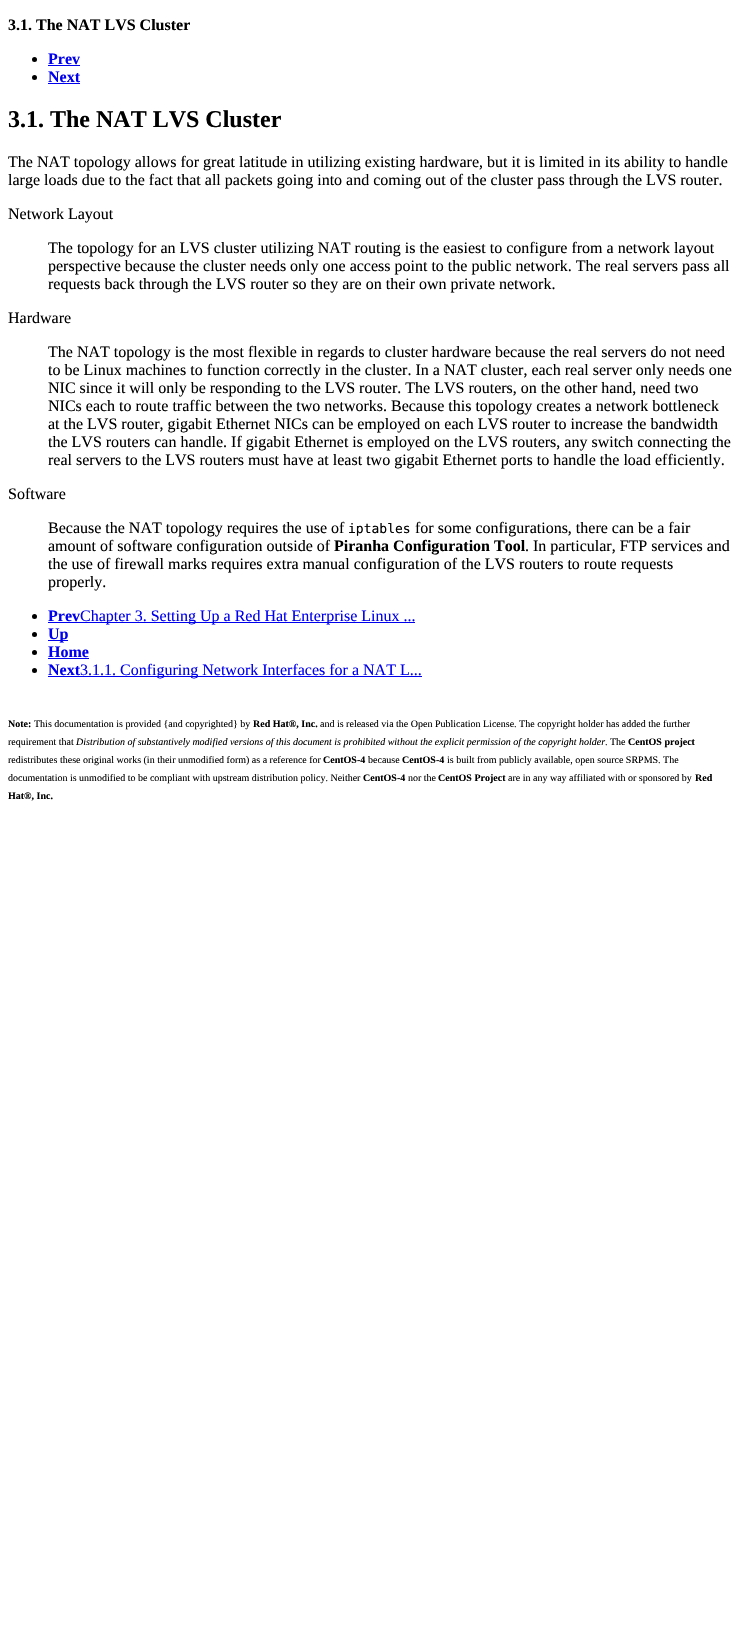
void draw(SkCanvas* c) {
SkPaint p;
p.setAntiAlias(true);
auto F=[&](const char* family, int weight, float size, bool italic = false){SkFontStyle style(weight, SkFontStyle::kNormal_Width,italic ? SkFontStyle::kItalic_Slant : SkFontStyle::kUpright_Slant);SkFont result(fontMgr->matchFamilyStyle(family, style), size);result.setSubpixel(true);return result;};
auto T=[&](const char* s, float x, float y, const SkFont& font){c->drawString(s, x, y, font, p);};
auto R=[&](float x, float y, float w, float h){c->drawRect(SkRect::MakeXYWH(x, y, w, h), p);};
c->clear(0xffffffff);
auto f1 = F("Liberation Serif",700,16);
p.setColor(0xff000000);
T("3.1. The NAT LVS Cluster",8,30,f1);
c->drawCircle(34.5,59.5,2.5,p);
p.setColor(0xff0000ee);
T("Prev",48,64,f1);
R(48,65,32,1);
p.setColor(0xff000000);
c->drawCircle(34.5,77.5,2.5,p);
p.setColor(0xff0000ee);
T("Next",48,82,f1);
R(48,83,32,1);
auto f2 = F("Liberation Serif",700,24);
p.setColor(0xff000000);
T("3.1. The NAT LVS Cluster",8,127,f2);
auto f3 = F("Liberation Serif",400,16);
T("The NAT topology allows for great latitude in utilizing existing hardware, but it is limited in its ability to handle",8,167,f3);
T("large loads due to the fact that all packets going into and coming out of the cluster pass through the LVS router.",8,185,f3);
T("Network Layout",8,219,f3);
T("The topology for an LVS cluster utilizing NAT routing is the easiest to configure from a network layout",48,253,f3);
T("perspective because the cluster needs only one access point to the public network. The real servers pass all",48,271,f3);
T("requests back through the LVS router so they are on their own private network.",48,289,f3);
T("Hardware",8,323,f3);
T("The NAT topology is the most flexible in regards to cluster hardware because the real servers do not need",48,357,f3);
T("to be Linux machines to function correctly in the cluster. In a NAT cluster, each real server only needs one",48,375,f3);
T("NIC since it will only be responding to the LVS router. The LVS routers, on the other hand, need two",48,393,f3);
T("NICs each to route traffic between the two networks. Because this topology creates a network bottleneck",48,411,f3);
T("at the LVS router, gigabit Ethernet NICs can be employed on each LVS router to increase the bandwidth",48,429,f3);
T("the LVS routers can handle. If gigabit Ethernet is employed on the LVS routers, any switch connecting the",48,447,f3);
T("real servers to the LVS routers must have at least two gigabit Ethernet ports to handle the load efficiently.",48,465,f3);
T("Software",8,499,f3);
T("Because the NAT topology requires the use of",48,533,f3);
auto f4 = F("DejaVu Sans Mono",400,13);
T("iptables",348,533,f4);
T("for some configurations, there can be a fair",415,533,f3);
T("amount of software configuration outside of",48,551,f3);
T("Piranha Configuration Tool",334,551,f1);
T(". In particular, FTP services and",525,551,f3);
T("the use of firewall marks requires extra manual configuration of the LVS routers to route requests",48,569,f3);
T("properly.",48,587,f3);
c->drawCircle(34.5,616.5,2.5,p);
p.setColor(0xff0000ee);
T("Prev",48,621,f1);
R(48,622,367,1);
T("Chapter 3. Setting Up a Red Hat Enterprise Linux ...",80,621,f3);
p.setColor(0xff000000);
c->drawCircle(34.5,634.5,2.5,p);
p.setColor(0xff0000ee);
R(48,640,20,1);
T("Up",48,639,f1);
p.setColor(0xff000000);
c->drawCircle(34.5,652.5,2.5,p);
p.setColor(0xff0000ee);
T("Home",48,657,f1);
R(48,658,41,1);
p.setColor(0xff000000);
c->drawCircle(34.5,670.5,2.5,p);
p.setColor(0xff0000ee);
T("Next",48,675,f1);
R(48,676,374,1);
T("3.1.1. Configuring Network Interfaces for a NAT L...",80,675,f3);
auto f5 = F("Liberation Serif",700,10);
p.setColor(0xff000000);
T("Note:",8,727,f5);
auto f6 = F("Liberation Serif",400,10);
T("This documentation is provided {and copyrighted} by",34,727,f6);
T("Red Hat®, Inc.",253,727,f5);
T("and is released via the Open Publication License. The copyright holder has added the further",320,727,f6);
T("requirement that",8,745,f6);
auto f7 = F("Liberation Serif",400,10,true);
T("Distribution of substantively modified versions of this document is prohibited without the explicit permission of the copyright holder",76,745,f7);
T(". The",605,745,f6);
T("CentOS project",628,745,f5);
T("redistributes these original works (in their unmodified form) as a reference for",8,763,f6);
T("CentOS-4",323,763,f5);
T("because",368,763,f6);
T("CentOS-4",402,763,f5);
T("is built from publicly available, open source SRPMS. The",447,763,f6);
T("documentation is unmodified to be compliant with upstream distribution policy. Neither",8,781,f6);
T("CentOS-4",363,781,f5);
T("nor the",408,781,f6);
T("CentOS Project",438,781,f5);
T("are in any way affiliated with or sponsored by",508,781,f6);
T("Red",695,781,f5);
T("Hat®, Inc.",8,799,f5);
}
